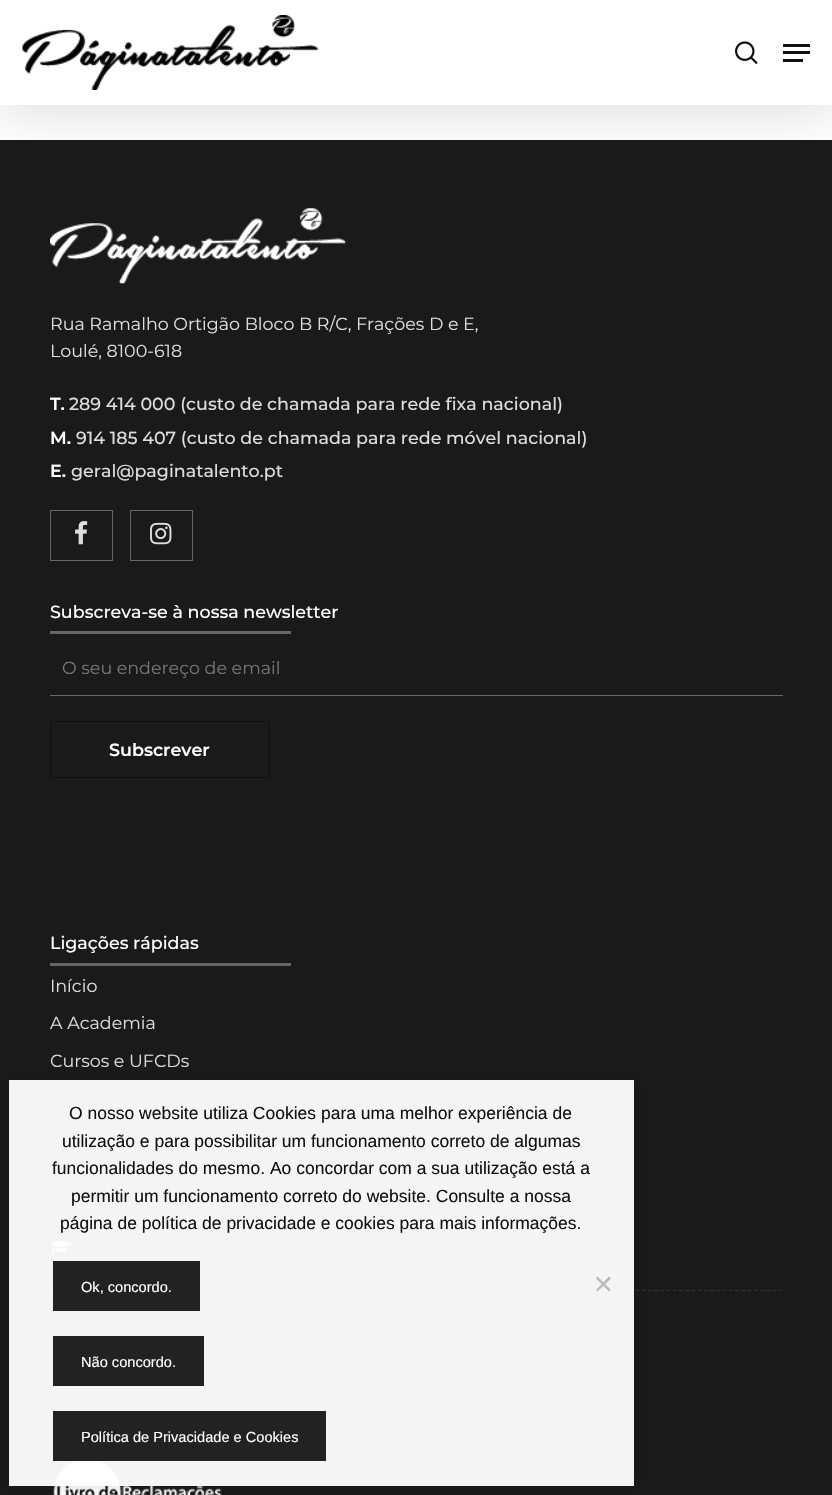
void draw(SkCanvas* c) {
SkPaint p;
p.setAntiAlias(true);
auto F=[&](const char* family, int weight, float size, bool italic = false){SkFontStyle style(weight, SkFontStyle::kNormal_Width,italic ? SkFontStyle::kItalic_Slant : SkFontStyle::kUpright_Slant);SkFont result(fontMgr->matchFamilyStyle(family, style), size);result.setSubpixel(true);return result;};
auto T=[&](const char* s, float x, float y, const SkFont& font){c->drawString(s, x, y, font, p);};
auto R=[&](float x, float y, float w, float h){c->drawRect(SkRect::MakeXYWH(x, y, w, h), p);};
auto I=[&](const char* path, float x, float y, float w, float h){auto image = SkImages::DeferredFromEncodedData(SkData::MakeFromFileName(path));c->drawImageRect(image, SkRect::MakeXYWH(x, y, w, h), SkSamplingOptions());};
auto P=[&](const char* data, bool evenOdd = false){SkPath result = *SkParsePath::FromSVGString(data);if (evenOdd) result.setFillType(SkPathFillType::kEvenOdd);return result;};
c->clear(0xffffffff);
p.setColor(0xff1a1a1a);
R(0,140,832,1355);
c->save();
c->clipRect(SkRect::MakeXYWH(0,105,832,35));
p.setColor(0x26000000);
p.setMaskFilter(SkMaskFilter::MakeBlur(kNormal_SkBlurStyle, 28));
c->drawRect(SkRect::MakeXYWH(0,4,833,105),p);
p.setMaskFilter(nullptr);
c->restore();
I("1.png",22,15,297,75);
I("2.png",735,41,23,23);
p.setColor(0xff111111);
R(783,44,27,3);
R(783,59,20,3);
R(783,51,27,3);
I("3.png",50,208,297,76);
auto f1 = F("Montserrat",400,17.5);
p.setColor(0xffdddddd);
T("Rua Ramalho Ortigão Bloco B R/C, Frações D e E,",50,330,f1);
T("Loulé, 8100-618",50,357,f1);
auto f2 = F("Montserrat",600,17.5);
p.setColor(0xffffffff);
T("T.",50,410,f2);
auto f3 = F("Montserrat",500,17.5);
p.setColor(0xffdddddd);
T("289 414 000 (custo de chamada para rede fixa nacional)",69,410,f3);
p.setColor(0xffffffff);
T("M.",50,444,f2);
p.setColor(0xffdddddd);
T("914 185 407 (custo de chamada para rede móvel nacional)",76,444,f3);
p.setColor(0xffffffff);
T("E.",50,477,f2);
p.setColor(0xffdddddd);
T("geral@paginatalento.pt",71,477,f3);
p.setStroke(true);
p.setStrokeWidth(1);
p.setColor(0xff666666);
c->drawRect(SkRect::MakeXYWH(50.5,510.5,62,50),p);
I("4.png",75,521,13,24);
c->drawRect(SkRect::MakeXYWH(130.5,510.5,62,50),p);
I("5.png",150,522,22,23);
p.setStroke(false);
p.setColor(0xffffffff);
T("Subscreva-se à nossa newsletter",50,618,f3);
p.setColor(0xff666666);
R(50,631,241,3);
R(50,695,733,1);
p.setColor(0xff757575);
T("O seu endereço de email",62,674,f1);
p.setStroke(true);
p.setColor(0xff111111);
c->drawRect(SkRect::MakeXYWH(50.5,721.5,219,56),p);
p.setStroke(false);
p.setColor(0xffffffff);
T("Subscrever",109,756,f2);
T("Ligações rápidas",50,949,f3);
p.setColor(0xff666666);
R(50,963,241,3);
p.setColor(0xffdddddd);
T("Início",50,992,f1);
T("A Academia",50,1029,f1);
T("Cursos e UFCDs",50,1067,f1);
I("6.png",50,1240,23,15);
p.setStroke(true);
p.setStrokeWidth(1.2);
p.setColor(0xff313131);
p.setPathEffect(SkDashPathEffect::Make({{3.75f,2.48f}}, 0));
c->drawPath(P("M50 1290.5h732.5"),p);
p.setPathEffect(nullptr);
I("7.png",53,1461,169,34);
c->save();
c->clipPath(P("M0 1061h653v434h-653zm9 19h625v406h-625z",true),true);
p.setStroke(false);
p.setColor(0x26000000);
p.setMaskFilter(SkMaskFilter::MakeBlur(kNormal_SkBlurStyle, 6));
c->drawRect(SkRect::MakeXYWH(9,1080,625,406),p);
p.setMaskFilter(nullptr);
c->restore();
p.setColor(0xf2ffffff);
R(9,1080,625,406);
auto f4 = F("Liberation Sans",400,17.5);
p.setColor(0xff111111);
T("O nosso website utiliza Cookies para uma melhor experiência de",69,1119,f4);
T("utilização e para possibilitar um funcionamento correto de algumas",62,1147,f4);
T("funcionalidades do mesmo. Ao concordar com a sua utilização está a",52,1174,f4);
T("permitir um funcionamento correto do website. Consulte a nossa",71,1202,f4);
T("página de política de privacidade e cookies para mais informações.",60,1229,f4);
p.setColor(0xff222222);
R(53,1261,147,50);
auto f5 = F("Liberation Sans",400,14.6);
p.setColor(0xffffffff);
T("Ok, concordo.",81,1292,f5);
p.setColor(0xff222222);
R(53,1336,151,50);
p.setColor(0xffffffff);
T("Não concordo.",81,1367,f5);
p.setColor(0xff222222);
R(53,1411,273,50);
p.setColor(0xffffffff);
T("Política de Privacidade e Cookies",81,1442,f5);
p.setColor(0xffbababa);
c->drawPath(P("M609 1276.5l2 2l-13.5 13l-1.5-1.5z"),p);
c->drawPath(P("M596 1278.5l1.5-2l13.5 13.5l-2 1.5z"),p);
}
